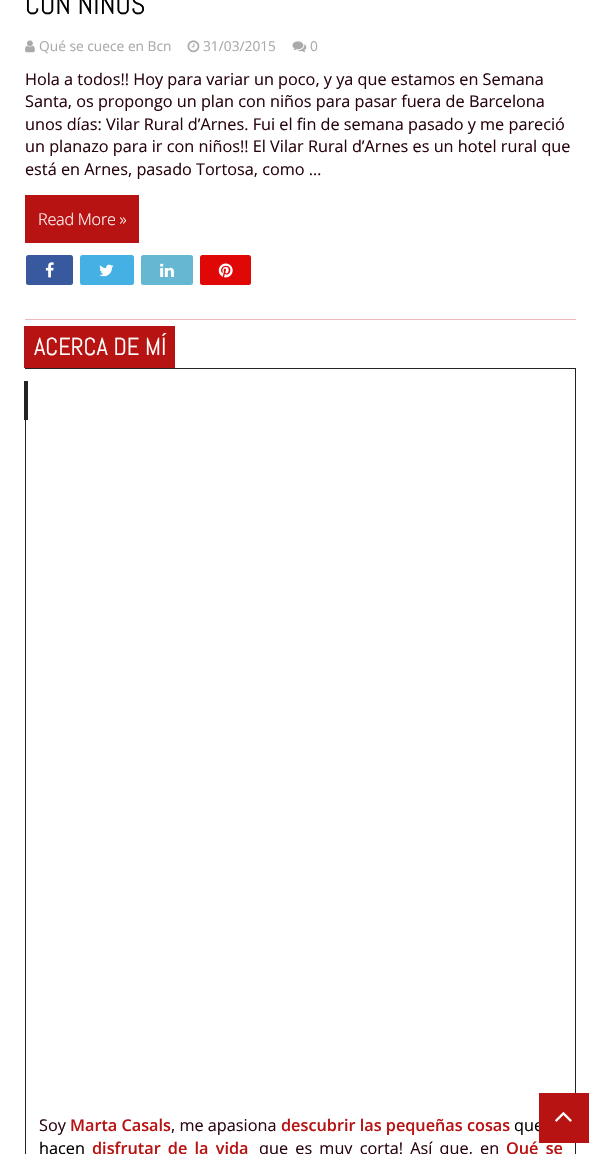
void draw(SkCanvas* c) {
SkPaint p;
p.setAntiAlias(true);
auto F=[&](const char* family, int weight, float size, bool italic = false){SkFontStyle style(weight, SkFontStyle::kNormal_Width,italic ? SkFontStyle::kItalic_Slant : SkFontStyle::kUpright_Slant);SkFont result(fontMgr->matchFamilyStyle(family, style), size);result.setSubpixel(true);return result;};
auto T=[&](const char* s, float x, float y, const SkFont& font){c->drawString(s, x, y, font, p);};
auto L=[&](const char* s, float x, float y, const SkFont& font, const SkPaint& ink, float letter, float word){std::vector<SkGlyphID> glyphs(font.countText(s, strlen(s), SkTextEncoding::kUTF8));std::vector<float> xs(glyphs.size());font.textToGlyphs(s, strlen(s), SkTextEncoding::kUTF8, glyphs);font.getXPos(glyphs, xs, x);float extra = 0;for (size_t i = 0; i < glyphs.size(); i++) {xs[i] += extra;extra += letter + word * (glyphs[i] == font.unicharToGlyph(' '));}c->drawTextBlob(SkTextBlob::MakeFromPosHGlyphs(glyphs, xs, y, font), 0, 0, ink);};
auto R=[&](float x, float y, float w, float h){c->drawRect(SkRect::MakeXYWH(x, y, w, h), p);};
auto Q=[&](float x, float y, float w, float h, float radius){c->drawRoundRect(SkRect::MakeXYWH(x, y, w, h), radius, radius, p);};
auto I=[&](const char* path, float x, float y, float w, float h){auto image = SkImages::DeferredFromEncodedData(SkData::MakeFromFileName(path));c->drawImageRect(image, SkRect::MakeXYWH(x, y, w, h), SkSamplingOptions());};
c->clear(0xffffffff);
p.setColor(0xffeab8b8);
R(25,319,551,1);
auto f1 = F("Abel",400,28.5);
p.setColor(0xff000000);
T("CON NIÑOS",25,14,f1);
I("1.png",25,40,10,13);
auto f2 = F("Open Sans",400,13.75);
p.setColor(0xffaaaaaa);
T("Qué se cuece en Bcn",39,51,f2);
I("2.png",187,40,13,13);
T("31/03/2015",203,51,f2);
I("3.png",292,41,15,12);
T("0",310,51,f2);
auto f3 = F("Open Sans",400,16.25);
p.setColor(0xff29050e);
T("Hola a todos!! Hoy para variar un poco, y ya que estamos en Semana",25,85,f3);
T("Santa, os propongo un plan con niños para pasar fuera de Barcelona",25,107,f3);
T("unos días: Vilar Rural d’Arnes. Fui el fin de semana pasado y me pareció",25,130,f3);
T("un planazo para ir con niños!! El Vilar Rural d’Arnes es un hotel rural que",25,152,f3);
T("está en Arnes, pasado Tortosa, como …",25,175,f3);
p.setColor(0xffb81313);
R(25,195,114,48);
auto f4 = F("Open Sans",300,16.25);
p.setColor(0xffffffff);
L("Read More »",38,225,f4,p,-.25,0);
p.setColor(0xff39599f);
Q(26,255,47,30,2.5);
I("4.png",45,262,9,16);
p.setColor(0xff45b0e3);
Q(80,255,54,30,2.5);
I("5.png",99,264,15,13);
p.setColor(0xff65b7d2);
Q(141,255,52,30,2.5);
I("6.png",160,263,14,14);
p.setColor(0xffe00707);
Q(200,255,51,30,2.5);
I("7.png",218,263,15,15);
p.setColor(0xffb81313);
R(24,326,151,42);
auto f5 = F("Abel",400,24.5);
p.setColor(0xffffffff);
T("ACERCA DE MÍ",34,355,f5);
p.setStroke(true);
p.setStrokeWidth(1);
p.setColor(0xff222323);
c->drawRect(SkRect::MakeXYWH(25.5,368.5,550,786),p);
p.setStroke(false);
R(24,381,4,39);
p.setColor(0xffffffff);
R(25,369,1,12);
p.setColor(0xff29050e);
T("Soy",39,1131,f3);
auto f6 = F("Open Sans",600,16.25);
p.setColor(0xffb81313);
T("Marta Casals",70,1131,f6);
p.setColor(0xff29050e);
T(", me apasiona",171,1131,f3);
p.setColor(0xffb81313);
T("descubrir las pequeñas cosas",281,1131,f6);
p.setColor(0xff000000);
T("que",514,1131,f3);
T("hacen",39,1154,f3);
p.setColor(0xffb81313);
L("disfrutar de la vida",92,1154,f6,p,0,3);
p.setColor(0xff29050e);
L("que es muy corta! Así que, en",259,1154,f3,p,0,3);
p.setColor(0xffb81313);
L("Qué se",506,1154,f6,p,0,3);
R(539,1093,50,50);
I("8.png",555,1112,17,10);
}
